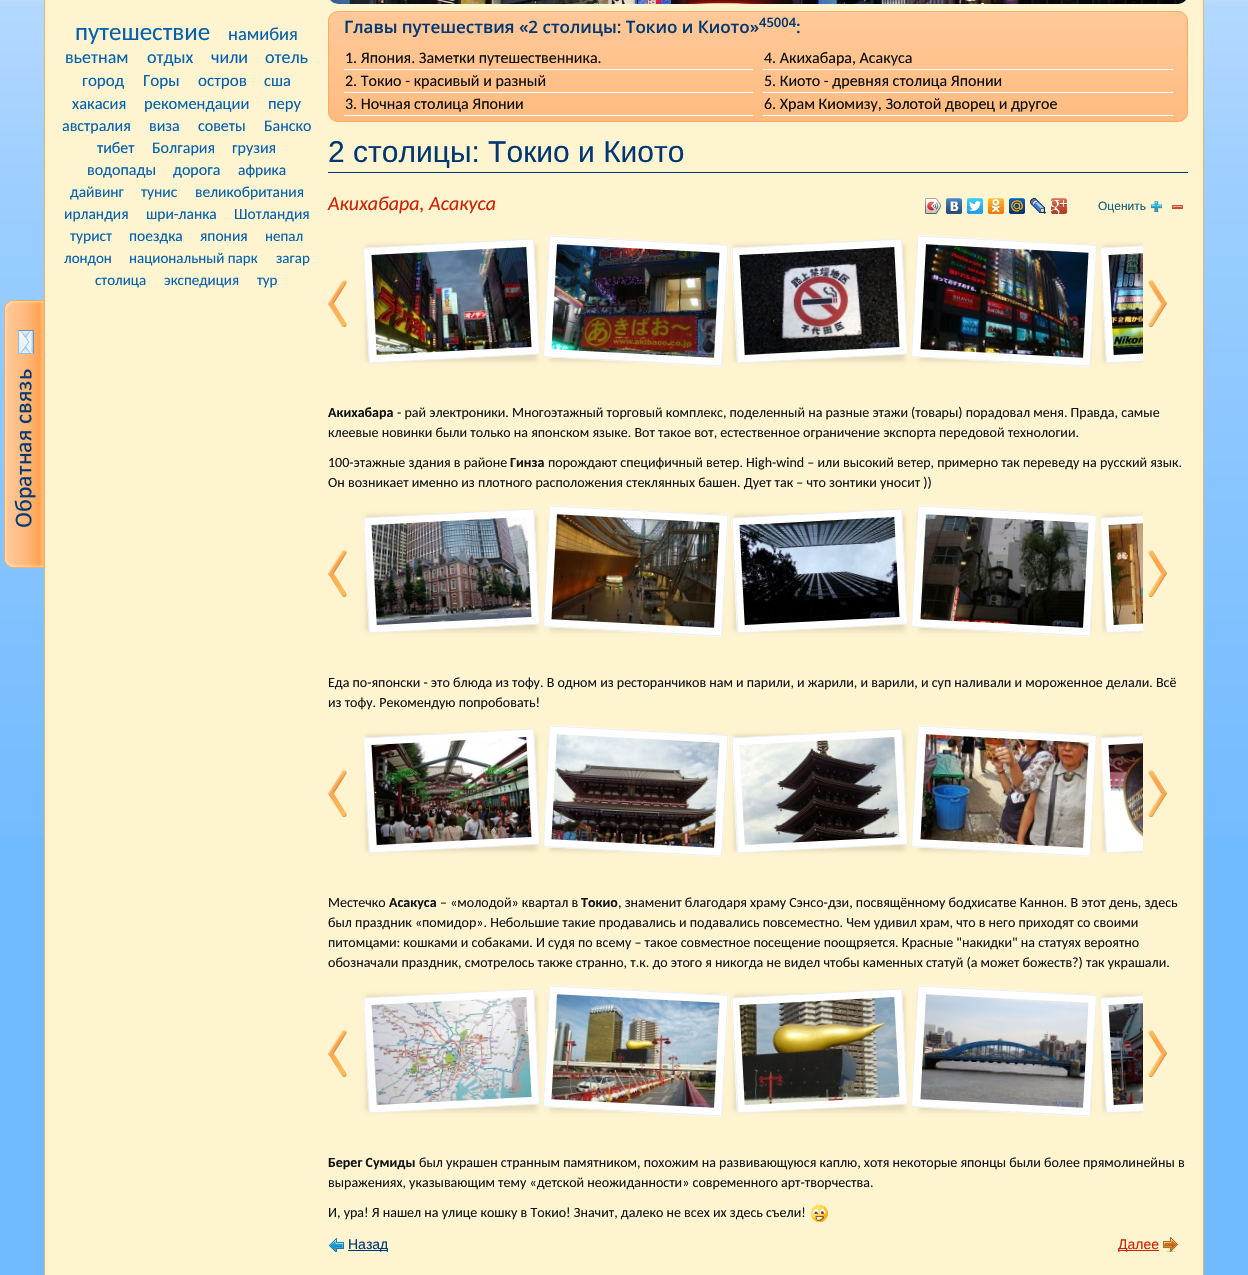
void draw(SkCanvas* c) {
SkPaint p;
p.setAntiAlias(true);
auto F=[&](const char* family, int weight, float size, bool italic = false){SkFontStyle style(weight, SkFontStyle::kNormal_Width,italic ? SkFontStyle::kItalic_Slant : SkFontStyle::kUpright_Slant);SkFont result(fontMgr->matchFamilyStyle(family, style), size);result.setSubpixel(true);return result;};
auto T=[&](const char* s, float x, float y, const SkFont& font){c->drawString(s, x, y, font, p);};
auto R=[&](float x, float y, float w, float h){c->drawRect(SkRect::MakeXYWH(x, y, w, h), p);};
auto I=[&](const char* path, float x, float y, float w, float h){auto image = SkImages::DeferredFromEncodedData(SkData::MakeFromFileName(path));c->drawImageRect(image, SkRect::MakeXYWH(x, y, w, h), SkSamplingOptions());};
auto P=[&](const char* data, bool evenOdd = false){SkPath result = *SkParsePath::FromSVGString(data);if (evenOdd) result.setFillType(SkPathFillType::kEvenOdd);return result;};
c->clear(0xff70baff);
I("1.png",0,0,1248,836);
I("2.png",0,0,1248,6);
I("3.png",4,300,40,268);
p.setColor(0xfffff4d0);
c->drawRect(SkRect::MakeXYWH(44.5,-.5,1159,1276),p);
p.setStroke(true);
p.setStrokeWidth(1);
p.setColor(0xffecb371);
c->drawRect(SkRect::MakeXYWH(44.5,-.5,1159,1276),p);
auto f1 = F("Carlito",400,25);
p.setStroke(false);
p.setColor(0xff0260b0);
T("путешествие",75,40,f1);
auto f2 = F("Carlito",400,18.5);
T("намибия",228,40,f2);
auto f3 = F("Carlito",400,18);
T("вьетнам",65,63,f3);
T("отдых",147,63,f3);
T("чили",211,63,f3);
T("отель",265,63,f3);
auto f4 = F("Carlito",400,17);
T("город",82,86,f4);
T("Горы",143,86,f4);
T("остров",198,86,f4);
auto f5 = F("Carlito",400,16.5);
T("сша",264,86,f5);
T("хакасия",72,109,f5);
T("рекомендации",144,109,f5);
T("перу",268,109,f5);
auto f6 = F("Carlito",400,16);
T("австралия",62,131,f6);
T("виза",149,131,f6);
T("советы",198,131,f6);
T("Банско",264,131,f6);
T("тибет",97,153,f6);
T("Болгария",152,153,f6);
T("грузия",232,153,f6);
T("водопады",87,175,f6);
T("дорога",173,175,f6);
auto f7 = F("Carlito",400,15.5);
T("африка",238,175,f7);
T("дайвинг",70,197,f7);
T("тунис",141,197,f7);
T("великобритания",195,197,f7);
T("ирландия",64,219,f7);
T("шри-ланка",146,219,f7);
T("Шотландия",234,219,f7);
T("турист",70,241,f7);
T("поездка",129,241,f7);
T("япония",200,241,f7);
auto f8 = F("Carlito",400,15);
T("непал",265,241,f8);
T("лондон",64,263,f8);
T("национальный парк",129,263,f8);
T("загар",276,263,f8);
T("столица",95,285,f8);
T("экспедиция",164,285,f8);
T("тур",257,285,f8);
I("4.png",330,0,856,4);
I("5.png",328,12,860,110);
p.setStroke(true);
p.setColor(0xfffeac63);
c->drawRoundRect(SkRect::MakeXYWH(328.5,11.5,859,110),9.5,9.5,p);
auto f9 = F("Open Sans",600,17);
p.setStroke(false);
p.setColor(0xff003772);
T("Главы путешествия «2 столицы: Токио и Киото»",344,33,f9);
auto f10 = F("Open Sans",600,13);
T("45004",759,27,f10);
T(":",796,33,f9);
p.setColor(0xffffffff);
R(344,69,409,1);
p.setColor(0xff0b0b0b);
T("1. Япония. Заметки путешественника.",345,63,f6);
p.setColor(0xffffffff);
R(763,69,410,1);
p.setColor(0xff0b0b0b);
T("4. Акихабара, Асакуса",764,63,f6);
p.setColor(0xffffffff);
R(344,92,409,1);
p.setColor(0xff0b0b0b);
T("2. Токио - красивый и разный",345,86,f6);
p.setColor(0xffffffff);
R(763,92,410,1);
p.setColor(0xff0b0b0b);
T("5. Киото - древняя столица Японии",764,86,f6);
p.setColor(0xffffffff);
R(344,115,409,1);
p.setColor(0xff0b0b0b);
T("3. Ночная столица Японии",345,109,f6);
p.setColor(0xffffffff);
R(763,115,410,1);
p.setColor(0xff0b0b0b);
T("6. Храм Киомизу, Золотой дворец и другое",764,109,f6);
p.setColor(0xff003772);
R(328,172,860,1);
auto f11 = F("Liberation Sans",400,30);
T("2 столицы: Токио и Киото",328,162,f11);
auto f12 = F("Carlito",400,20,true);
p.setColor(0xffcc2200);
T("Акихабара, Асакуса",328,210,f12);
I("6.png",925,198,16,16);
I("7.png",925,198,16,16);
I("8.png",946,198,16,16);
I("9.png",967,198,16,16);
I("10.png",988,198,16,16);
I("11.png",1009,198,16,16);
I("12.png",1030,198,16,16);
I("13.png",1051,198,16,16);
auto f13 = F("Liberation Sans",400,12);
p.setColor(0xff175d73);
T("Оценить",1098,210,f13);
I("14.png",1151,201,11,11);
I("15.png",1172,205,11,4);
I("16.png",328,280,19,47);
p.setColor(0x1a000000);
p.setMaskFilter(SkMaskFilter::MakeBlur(kNormal_SkBlurStyle, 2));
c->drawRect(SkRect::MakeXYWH(366,245,171,116),p);
p.setMaskFilter(nullptr);
p.setColor(0xffffffff);
c->drawPath(P("M363 248l171-9l6 115l-171 9z"),p);
p.setStroke(true);
p.setColor(0xffeeeeee);
c->drawPath(P("M363.5 248l170-9l6 115l-170 9z"),p);
I("17.png",371,247,161,108);
p.setStroke(false);
p.setColor(0x1a000000);
p.setMaskFilter(SkMaskFilter::MakeBlur(kNormal_SkBlurStyle, 2));
c->drawRect(SkRect::MakeXYWH(550,245,171,116),p);
p.setMaskFilter(nullptr);
p.setColor(0xffffffff);
c->drawPath(P("M549 235l180 10l-7 122l-179-10z"),p);
p.setStroke(true);
p.setColor(0xffeeeeee);
c->drawPath(P("M549.5 236l178.5 9.5l-6.5 120.5l-178-9.5z"),p);
I("18.png",551,244,169,114);
p.setStroke(false);
p.setColor(0x1a000000);
p.setMaskFilter(SkMaskFilter::MakeBlur(kNormal_SkBlurStyle, 2));
c->drawRect(SkRect::MakeXYWH(734,245,171,116),p);
p.setMaskFilter(nullptr);
p.setColor(0xffffffff);
c->drawPath(P("M731 248l171-9l6 115l-171 9z"),p);
p.setStroke(true);
p.setColor(0xffeeeeee);
c->drawPath(P("M732 248l169.5-9l6 115l-169.5 9z"),p);
I("19.png",739,247,161,108);
p.setStroke(false);
p.setColor(0x1a000000);
p.setMaskFilter(SkMaskFilter::MakeBlur(kNormal_SkBlurStyle, 2));
c->drawRect(SkRect::MakeXYWH(919,245,171,116),p);
p.setMaskFilter(nullptr);
p.setColor(0xffffffff);
c->drawPath(P("M918 235l179 10l-7 122l-179-10z"),p);
p.setStroke(true);
p.setColor(0xffeeeeee);
c->drawPath(P("M918 236l178.5 9.5l-6.5 120.5l-178.5-9.5z"),p);
I("20.png",920,244,169,114);
I("22.png",1148,280,19,47);
c->save();
c->clipRect(SkRect::MakeXYWH(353,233,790,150));
p.setStroke(false);
p.setColor(0x1a000000);
p.setMaskFilter(SkMaskFilter::MakeBlur(kNormal_SkBlurStyle, 2));
c->drawRect(SkRect::MakeXYWH(1103,245,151,116),p);
p.setMaskFilter(nullptr);
c->restore();
c->save();
c->clipRect(SkRect::MakeXYWH(353,233,790,150));
p.setColor(0xffffffff);
c->drawPath(P("M1100 248l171-9l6 115l-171 9z"),p);
p.setStroke(true);
p.setColor(0xffeeeeee);
c->drawPath(P("M1100.5 248l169.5-9l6 115l-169.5 9z"),p);
c->restore();
I("21.png",1108,253,35,102);
auto f14 = F("Carlito",700,14);
p.setStroke(false);
p.setColor(0xff121518);
T("Акихабара",328,417,f14);
auto f15 = F("Carlito",400,14);
T("- рай электроники. Многоэтажный торговый комплекс, поделенный на разные этажи (товары) порадовал меня. Правда, самые",397,417,f15);
T("клеевые новинки были только на японском языке. Вот такое вот, естественное ограничение экспорта передовой технологии.",328,437,f15);
T("100-этажные здания в районе",328,467,f15);
T("Гинза",510,467,f14);
T("порождают специфичный ветер. High-wind – или высокий ветер, примерно так переведу на русский язык.",548,467,f15);
T("Он возникает именно из плотного расположения стеклянных башен. Дует так – что зонтики уносит ))",328,487,f15);
I("16.png",328,550,19,47);
p.setColor(0x1a000000);
p.setMaskFilter(SkMaskFilter::MakeBlur(kNormal_SkBlurStyle, 2));
c->drawRect(SkRect::MakeXYWH(366,515,171,116),p);
p.setMaskFilter(nullptr);
p.setColor(0xffffffff);
c->drawPath(P("M363 518l171-9l6 115l-171 9z"),p);
p.setStroke(true);
p.setColor(0xffeeeeee);
c->drawPath(P("M363.5 518l170-9l6 115l-170 9z"),p);
I("23.png",371,517,161,108);
p.setStroke(false);
p.setColor(0x1a000000);
p.setMaskFilter(SkMaskFilter::MakeBlur(kNormal_SkBlurStyle, 2));
c->drawRect(SkRect::MakeXYWH(550,515,171,116),p);
p.setMaskFilter(nullptr);
p.setColor(0xffffffff);
c->drawPath(P("M549 505l180 10l-7 122l-179-10z"),p);
p.setStroke(true);
p.setColor(0xffeeeeee);
c->drawPath(P("M549.5 506l178.5 9.5l-6.5 120.5l-178-9.5z"),p);
I("24.png",551,514,169,114);
p.setStroke(false);
p.setColor(0x1a000000);
p.setMaskFilter(SkMaskFilter::MakeBlur(kNormal_SkBlurStyle, 2));
c->drawRect(SkRect::MakeXYWH(734,515,171,116),p);
p.setMaskFilter(nullptr);
p.setColor(0xffffffff);
c->drawPath(P("M731 518l171-9l6 115l-171 9z"),p);
p.setStroke(true);
p.setColor(0xffeeeeee);
c->drawPath(P("M732 518l169.5-9l6 115l-169.5 9z"),p);
I("25.png",739,517,161,108);
p.setStroke(false);
p.setColor(0x1a000000);
p.setMaskFilter(SkMaskFilter::MakeBlur(kNormal_SkBlurStyle, 2));
c->drawRect(SkRect::MakeXYWH(919,515,171,116),p);
p.setMaskFilter(nullptr);
p.setColor(0xffffffff);
c->drawPath(P("M918 505l179 10l-7 122l-179-10z"),p);
p.setStroke(true);
p.setColor(0xffeeeeee);
c->drawPath(P("M918 506l178.5 9.5l-6.5 120.5l-178.5-9.5z"),p);
I("26.png",920,514,169,114);
I("22.png",1148,550,19,47);
c->save();
c->clipRect(SkRect::MakeXYWH(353,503,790,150));
p.setStroke(false);
p.setColor(0x1a000000);
p.setMaskFilter(SkMaskFilter::MakeBlur(kNormal_SkBlurStyle, 2));
c->drawRect(SkRect::MakeXYWH(1103,515,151,116),p);
p.setMaskFilter(nullptr);
c->restore();
c->save();
c->clipRect(SkRect::MakeXYWH(353,503,790,150));
p.setColor(0xffffffff);
c->drawPath(P("M1100 518l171-9l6 115l-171 9z"),p);
p.setStroke(true);
p.setColor(0xffeeeeee);
c->drawPath(P("M1100.5 518l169.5-9l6 115l-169.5 9z"),p);
c->restore();
I("27.png",1108,523,35,102);
p.setStroke(false);
p.setColor(0xff121518);
T("Еда по-японски - это блюда из тофу. В одном из ресторанчиков нам и парили, и жарили, и варили, и суп наливали и мороженное делали. Всё",328,687,f15);
T("из тофу. Рекомендую попробовать!",328,707,f15);
I("16.png",328,770,19,47);
p.setColor(0x1a000000);
p.setMaskFilter(SkMaskFilter::MakeBlur(kNormal_SkBlurStyle, 2));
c->drawRect(SkRect::MakeXYWH(366,735,171,116),p);
p.setMaskFilter(nullptr);
p.setColor(0xffffffff);
c->drawPath(P("M363 738l171-9l6 115l-171 9z"),p);
p.setStroke(true);
p.setColor(0xffeeeeee);
c->drawPath(P("M363.5 738l170-9l6 115l-170 9z"),p);
I("28.png",371,737,161,108);
p.setStroke(false);
p.setColor(0x1a000000);
p.setMaskFilter(SkMaskFilter::MakeBlur(kNormal_SkBlurStyle, 2));
c->drawRect(SkRect::MakeXYWH(550,735,171,116),p);
p.setMaskFilter(nullptr);
p.setColor(0xffffffff);
c->drawPath(P("M549 725l180 10l-7 122l-179-10z"),p);
p.setStroke(true);
p.setColor(0xffeeeeee);
c->drawPath(P("M549.5 726l178.5 9.5l-6.5 120.5l-178-9.5z"),p);
I("29.png",551,734,169,114);
p.setStroke(false);
p.setColor(0x1a000000);
p.setMaskFilter(SkMaskFilter::MakeBlur(kNormal_SkBlurStyle, 2));
c->drawRect(SkRect::MakeXYWH(734,735,171,116),p);
p.setMaskFilter(nullptr);
p.setColor(0xffffffff);
c->drawPath(P("M731 738l171-9l6 115l-171 9z"),p);
p.setStroke(true);
p.setColor(0xffeeeeee);
c->drawPath(P("M732 738l169.5-9l6 115l-169.5 9z"),p);
I("30.png",739,737,161,108);
p.setStroke(false);
p.setColor(0x1a000000);
p.setMaskFilter(SkMaskFilter::MakeBlur(kNormal_SkBlurStyle, 2));
c->drawRect(SkRect::MakeXYWH(919,735,171,116),p);
p.setMaskFilter(nullptr);
p.setColor(0xffffffff);
c->drawPath(P("M918 725l179 10l-7 122l-179-10z"),p);
p.setStroke(true);
p.setColor(0xffeeeeee);
c->drawPath(P("M918 726l178.5 9.5l-6.5 120.5l-178.5-9.5z"),p);
I("31.png",920,734,169,114);
I("22.png",1148,770,19,47);
c->save();
c->clipRect(SkRect::MakeXYWH(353,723,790,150));
p.setStroke(false);
p.setColor(0x1a000000);
p.setMaskFilter(SkMaskFilter::MakeBlur(kNormal_SkBlurStyle, 2));
c->drawRect(SkRect::MakeXYWH(1103,735,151,116),p);
p.setMaskFilter(nullptr);
c->restore();
c->save();
c->clipRect(SkRect::MakeXYWH(353,723,790,150));
p.setColor(0xffffffff);
c->drawPath(P("M1100 738l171-9l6 115l-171 9z"),p);
p.setStroke(true);
p.setColor(0xffeeeeee);
c->drawPath(P("M1100.5 738l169.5-9l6 115l-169.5 9z"),p);
c->restore();
I("32.png",1108,743,35,95);
p.setStroke(false);
p.setColor(0xff121518);
T("Местечко",328,907,f15);
T("Асакуса",389,907,f14);
T("– «молодой» квартал в",440,907,f15);
T("Токио",581,907,f14);
T(", знаменит благодаря храму Сэнсо-дзи, посвящённому бодхисатве Каннон. В этот день, здесь",618,907,f15);
T("был праздник «помидор». Небольшие такие продавались и подавались повсеместно. Чем удивил храм, что в него приходят со своими",328,927,f15);
T("питомцами: кошками и собаками. И судя по всему – такое совместное посещение поощряется. Красные \"накидки\" на статуях вероятно",328,947,f15);
T("обозначали праздник, смотрелось также странно, т.к. до этого я никогда не видел чтобы каменных статуй (а может божеств?) так украшали.",328,967,f15);
I("16.png",328,1030,19,47);
p.setColor(0x1a000000);
p.setMaskFilter(SkMaskFilter::MakeBlur(kNormal_SkBlurStyle, 2));
c->drawRect(SkRect::MakeXYWH(366,995,171,116),p);
p.setMaskFilter(nullptr);
p.setColor(0xffffffff);
c->drawPath(P("M363 998l171-9l6 115l-171 9z"),p);
p.setStroke(true);
p.setColor(0xffeeeeee);
c->drawPath(P("M363.5 998l170-9l6 115l-170 9z"),p);
I("33.png",371,997,161,108);
p.setStroke(false);
p.setColor(0x1a000000);
p.setMaskFilter(SkMaskFilter::MakeBlur(kNormal_SkBlurStyle, 2));
c->drawRect(SkRect::MakeXYWH(550,995,171,116),p);
p.setMaskFilter(nullptr);
p.setColor(0xffffffff);
c->drawPath(P("M549 985l180 10l-7 122l-179-10z"),p);
p.setStroke(true);
p.setColor(0xffeeeeee);
c->drawPath(P("M549.5 986l178.5 9.5l-6.5 120.5l-178-9.5z"),p);
I("34.png",551,994,169,114);
p.setStroke(false);
p.setColor(0x1a000000);
p.setMaskFilter(SkMaskFilter::MakeBlur(kNormal_SkBlurStyle, 2));
c->drawRect(SkRect::MakeXYWH(734,995,171,116),p);
p.setMaskFilter(nullptr);
p.setColor(0xffffffff);
c->drawPath(P("M731 998l171-9l6 115l-171 9z"),p);
p.setStroke(true);
p.setColor(0xffeeeeee);
c->drawPath(P("M732 998l169.5-9l6 115l-169.5 9z"),p);
I("35.png",739,997,161,108);
p.setStroke(false);
p.setColor(0x1a000000);
p.setMaskFilter(SkMaskFilter::MakeBlur(kNormal_SkBlurStyle, 2));
c->drawRect(SkRect::MakeXYWH(919,995,171,116),p);
p.setMaskFilter(nullptr);
p.setColor(0xffffffff);
c->drawPath(P("M918 985l179 10l-7 122l-179-10z"),p);
p.setStroke(true);
p.setColor(0xffeeeeee);
c->drawPath(P("M918 986l178.5 9.5l-6.5 120.5l-178.5-9.5z"),p);
I("36.png",920,994,169,114);
I("22.png",1148,1030,19,47);
c->save();
c->clipRect(SkRect::MakeXYWH(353,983,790,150));
p.setStroke(false);
p.setColor(0x1a000000);
p.setMaskFilter(SkMaskFilter::MakeBlur(kNormal_SkBlurStyle, 2));
c->drawRect(SkRect::MakeXYWH(1103,995,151,116),p);
p.setMaskFilter(nullptr);
c->restore();
c->save();
c->clipRect(SkRect::MakeXYWH(353,983,790,150));
p.setColor(0xffffffff);
c->drawPath(P("M1100 998l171-9l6 115l-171 9z"),p);
p.setStroke(true);
p.setColor(0xffeeeeee);
c->drawPath(P("M1100.5 998l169.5-9l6 115l-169.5 9z"),p);
c->restore();
I("37.png",1108,1003,35,102);
p.setStroke(false);
p.setColor(0xff121518);
T("Берег Сумиды",328,1167,f14);
T("был украшен странным памятником, похожим на развивающуюся каплю, хотя некоторые японцы были более прямолинейны в",419,1167,f15);
T("выражениях, указывающим тему «детской неожиданности» современного арт-творчества.",328,1187,f15);
T("И, ура! Я нашел на улице кошку в Токио! Значит, далеко не всех их здесь съели!",328,1217,f15);
I("38.png",811,1205,17,17);
I("39.png",328,1237,16,15);
p.setColor(0xff003672);
R(348,1250,40,1);
auto f16 = F("Liberation Sans",400,14);
p.setColor(0xff003772);
T("Назад",348,1249,f16);
p.setColor(0xffcd2300);
R(1118,1250,41,1);
p.setColor(0xffcc2200);
T("Далее",1118,1249,f16);
I("40.png",1163,1237,16,15);
}
